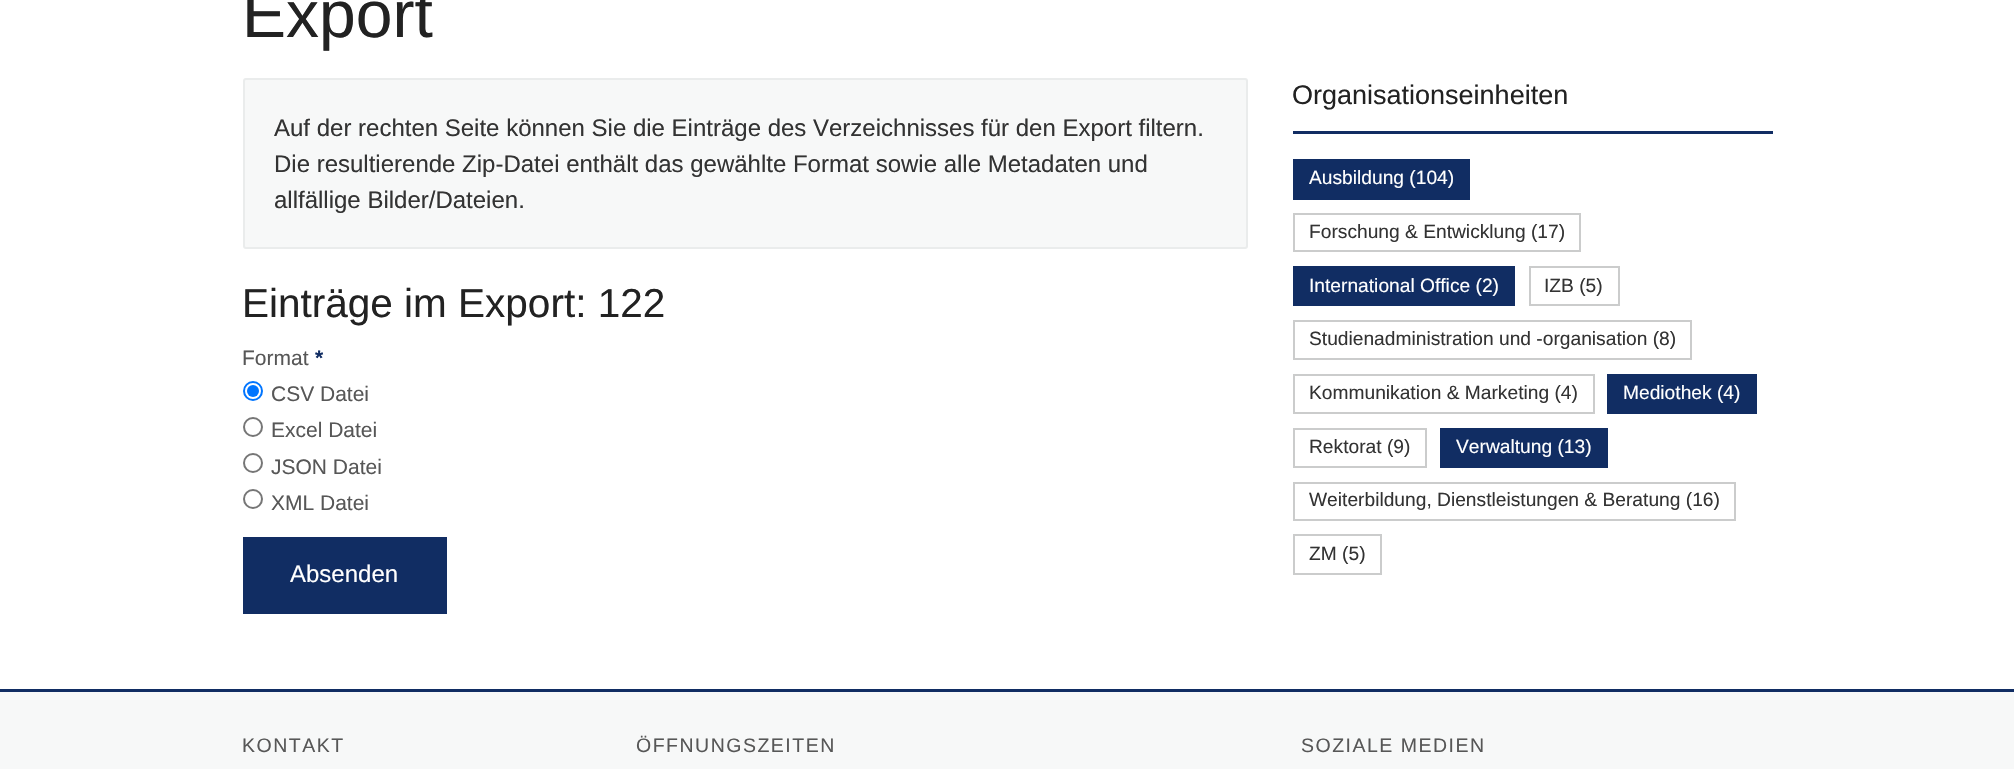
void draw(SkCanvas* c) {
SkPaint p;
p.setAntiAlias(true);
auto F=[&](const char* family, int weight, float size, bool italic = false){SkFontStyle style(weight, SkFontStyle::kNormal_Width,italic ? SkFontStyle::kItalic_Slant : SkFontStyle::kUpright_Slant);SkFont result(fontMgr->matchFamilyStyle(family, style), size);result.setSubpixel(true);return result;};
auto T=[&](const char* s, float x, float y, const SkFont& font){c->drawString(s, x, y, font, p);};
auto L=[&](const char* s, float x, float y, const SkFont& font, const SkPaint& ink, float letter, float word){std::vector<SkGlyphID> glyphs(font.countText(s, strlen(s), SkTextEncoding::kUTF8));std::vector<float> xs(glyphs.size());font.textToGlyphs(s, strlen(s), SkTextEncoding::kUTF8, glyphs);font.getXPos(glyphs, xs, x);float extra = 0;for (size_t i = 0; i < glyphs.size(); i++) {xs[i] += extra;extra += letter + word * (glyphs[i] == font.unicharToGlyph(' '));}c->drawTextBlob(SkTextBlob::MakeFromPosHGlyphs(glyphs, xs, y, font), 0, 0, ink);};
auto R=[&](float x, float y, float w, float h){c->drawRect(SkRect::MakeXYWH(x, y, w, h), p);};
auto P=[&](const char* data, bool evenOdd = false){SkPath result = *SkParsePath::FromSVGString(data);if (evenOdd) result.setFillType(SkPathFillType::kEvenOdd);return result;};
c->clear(0xffffffff);
auto f1 = F("Liberation Sans",400,66);
p.setColor(0xff222222);
T("Export",242,37,f1);
p.setColor(0xfff7f8f8);
c->drawRoundRect(SkRect::MakeXYWH(244,79,1003,169),2,2,p);
p.setStroke(true);
p.setStrokeWidth(2);
p.setColor(0xffeaecec);
c->drawRoundRect(SkRect::MakeXYWH(244,79,1003,169),2,2,p);
auto f2 = F("Liberation Sans",400,24);
p.setStroke(false);
p.setColor(0xff333333);
T("Auf der rechten Seite können Sie die Einträge des Verzeichnisses für den Export filtern.",274,136,f2);
T("Die resultierende Zip-Datei enthält das gewählte Format sowie alle Metadaten und",274,172,f2);
T("allfällige Bilder/Dateien.",274,208,f2);
auto f3 = F("Liberation Sans",400,40.5);
p.setColor(0xff222222);
T("Einträge im Export: 122",242,317,f3);
auto f4 = F("Liberation Sans",400,21);
p.setColor(0xff575757);
T("Format",242,365,f4);
auto f5 = F("Liberation Sans",700,21);
p.setColor(0xff112d63);
T("*",315,365,f5);
p.setStroke(true);
p.setColor(0xff0075ff);
c->drawCircle(253,391,9,p);
p.setStroke(false);
c->drawCircle(253,391,6,p);
p.setColor(0xff575757);
T("CSV Datei",271,401,f4);
p.setStroke(true);
p.setColor(0xff767676);
c->drawCircle(253,427,9,p);
p.setStroke(false);
p.setColor(0xff575757);
T("Excel Datei",271,437,f4);
p.setStroke(true);
p.setColor(0xff767676);
c->drawCircle(253,463,9,p);
p.setStroke(false);
p.setColor(0xff575757);
T("JSON Datei",271,474,f4);
p.setStroke(true);
p.setColor(0xff767676);
c->drawCircle(253,499,9,p);
p.setStroke(false);
p.setColor(0xff575757);
T("XML Datei",271,510,f4);
p.setColor(0xff112d63);
R(243,537,204,77);
p.setColor(0xffffffff);
T("Absenden",290,582,f2);
p.setColor(0xff112d63);
R(1293,131,480,3);
auto f6 = F("Liberation Sans",400,27);
p.setColor(0xff222222);
T("Organisationseinheiten",1292,104,f6);
p.setColor(0xff112d63);
R(1293,159,177,41);
auto f7 = F("Liberation Sans",400,19.2);
p.setColor(0xffffffff);
T("Ausbildung (104)",1309,184,f7);
p.setStroke(true);
p.setColor(0xffcbcccc);
c->drawRect(SkRect::MakeXYWH(1294,214,286,37),p);
p.setStroke(false);
p.setColor(0xff333333);
T("Forschung & Entwicklung (17)",1309,238,f7);
p.setColor(0xff112d63);
R(1293,266,222,40);
p.setColor(0xffffffff);
T("International Office (2)",1309,292,f7);
p.setStroke(true);
p.setColor(0xffcbcccc);
c->drawRect(SkRect::MakeXYWH(1530,267,89,38),p);
p.setStroke(false);
p.setColor(0xff333333);
T("IZB (5)",1544,292,f7);
p.setStroke(true);
p.setColor(0xffcbcccc);
c->drawRect(SkRect::MakeXYWH(1294,321,397,38),p);
p.setStroke(false);
p.setColor(0xff333333);
T("Studienadministration und -organisation (8)",1309,345,f7);
p.setStroke(true);
p.setColor(0xffcbcccc);
c->drawRect(SkRect::MakeXYWH(1294,375,300,38),p);
p.setStroke(false);
p.setColor(0xff333333);
T("Kommunikation & Marketing (4)",1309,399,f7);
p.setColor(0xff112d63);
R(1607,374,150,40);
p.setColor(0xffffffff);
T("Mediothek (4)",1623,399,f7);
p.setStroke(true);
p.setColor(0xffcbcccc);
c->drawRect(SkRect::MakeXYWH(1294,429,132,38),p);
p.setStroke(false);
p.setColor(0xff333333);
T("Rektorat (9)",1309,453,f7);
p.setColor(0xff112d63);
R(1440,428,168,40);
p.setColor(0xffffffff);
T("Verwaltung (13)",1456,453,f7);
p.setStroke(true);
p.setColor(0xffcbcccc);
c->drawRect(SkRect::MakeXYWH(1294,483,441,37),p);
p.setStroke(false);
p.setColor(0xff333333);
T("Weiterbildung, Dienstleistungen & Beratung (16)",1309,506,f7);
p.setStroke(true);
p.setColor(0xffcbcccc);
c->drawRect(SkRect::MakeXYWH(1294,535,87,39),p);
p.setStroke(false);
p.setColor(0xff333333);
T("ZM (5)",1309,560,f7);
p.setColor(0xff112d63);
c->drawPath(P("M0 689v3h2014v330h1v-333z"),p);
p.setColor(0xfff7f8f8);
R(0,692,2014,77);
auto f8 = F("Liberation Sans",400,19.5);
p.setColor(0xff575757);
L("KONTAKT",242,752,f8,p,1.5,0);
L("ÖFFNUNGSZEITEN",636,752,f8,p,1.5,0);
L("SOZIALE MEDIEN",1301,752,f8,p,1.5,0);
}
